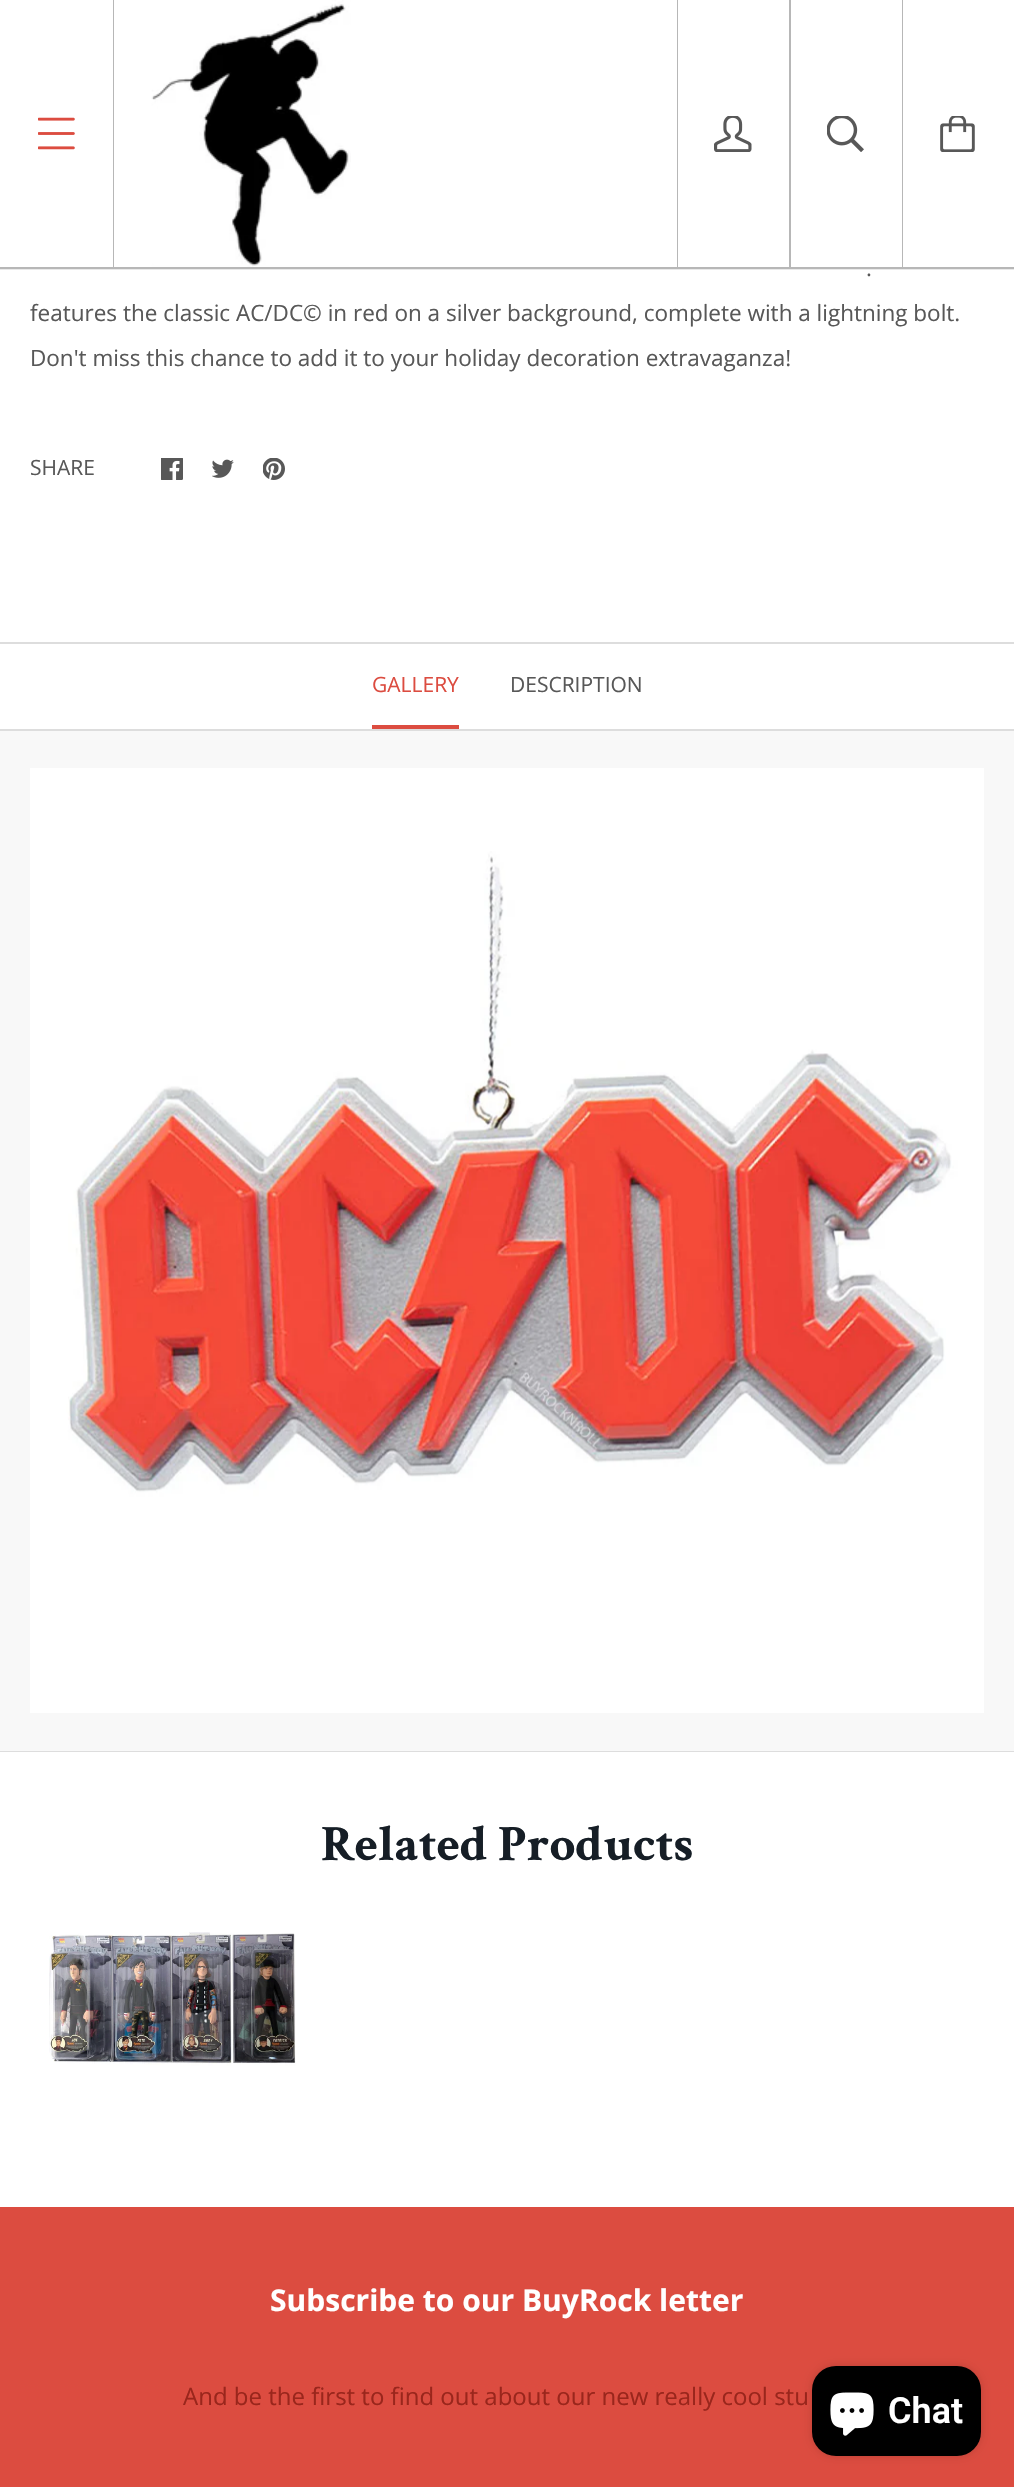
void draw(SkCanvas* c) {
SkPaint p;
p.setAntiAlias(true);
auto F=[&](const char* family, int weight, float size, bool italic = false){SkFontStyle style(weight, SkFontStyle::kNormal_Width,italic ? SkFontStyle::kItalic_Slant : SkFontStyle::kUpright_Slant);SkFont result(fontMgr->matchFamilyStyle(family, style), size);result.setSubpixel(true);return result;};
auto T=[&](const char* s, float x, float y, const SkFont& font){c->drawString(s, x, y, font, p);};
auto R=[&](float x, float y, float w, float h){c->drawRect(SkRect::MakeXYWH(x, y, w, h), p);};
auto Q=[&](float x, float y, float w, float h, float radius){c->drawRoundRect(SkRect::MakeXYWH(x, y, w, h), radius, radius, p);};
auto I=[&](const char* path, float x, float y, float w, float h){auto image = SkImages::DeferredFromEncodedData(SkData::MakeFromFileName(path));c->drawImageRect(image, SkRect::MakeXYWH(x, y, w, h), SkSamplingOptions());};
c->clear(0xffffffff);
p.setColor(0x4db7b7b7);
R(0,269,1014,1);
p.setColor(0xffb7b7b7);
R(0,267,1014,2);
I("1.png",38,117,37,33);
R(113,0,1,267);
I("2.png",151,0,200,267);
R(677,0,1,267);
I("3.png",714,116,38,36);
R(789,0,2,267);
I("4.png",827,116,37,36);
R(902,0,1,267);
I("5.png",940,116,35,36);
auto f1 = F("Open Sans",400,22.5);
p.setColor(0xff585858);
T(".",866,276,f1);
T("features the classic AC/DC© in red on a silver background, complete with a lightning bolt.",30,321,f1);
T("Don't miss this chance to add it to your holiday decoration extravaganza!",30,366,f1);
auto f2 = F("Open Sans",400,21);
T("SHARE",30,475,f2);
I("6.png",161,458,22,22);
I("7.png",212,459,22,19);
I("8.png",263,458,22,22);
p.setColor(0xffdddddd);
R(0,1751,1014,1);
R(0,642,1014,2);
R(0,729,1014,2);
p.setColor(0xffdc4c40);
T("GALLERY",372,692,f2);
R(372,725,87,4);
p.setColor(0xff585858);
T("DESCRIPTION",510,692,f2);
p.setColor(0xfff8f8f8);
R(0,731,1014,1020);
I("9.png",30,768,954,945);
auto f3 = F("Crimson Text",700,51);
p.setColor(0xff161e26);
T("Related Products",321,1860,f3);
I("10.png",49,1932,247,134);
p.setColor(0xffdc4c40);
R(0,2207,1014,280);
auto f4 = F("Open Sans",700,30);
p.setColor(0xffffffff);
T("Subscribe to our BuyRock letter",270,2311,f4);
auto f5 = F("Open Sans",400,24);
p.setColor(0xff9a261c);
T("And be the first to find out about our new really cool stu",183,2405,f5);
p.setColor(0x26000000);
p.setMaskFilter(SkMaskFilter::MakeBlur(kNormal_SkBlurStyle, 4));
c->drawRoundRect(SkRect::MakeXYWH(812,2366,169,90),24,24,p);
p.setMaskFilter(nullptr);
p.setColor(0xff000000);
Q(812,2366,169,90,24);
I("11.png",830,2392,44,44);
auto f6 = F("Roboto",600,36);
p.setColor(0xffffffff);
T("Chat",888,2423,f6);
}
